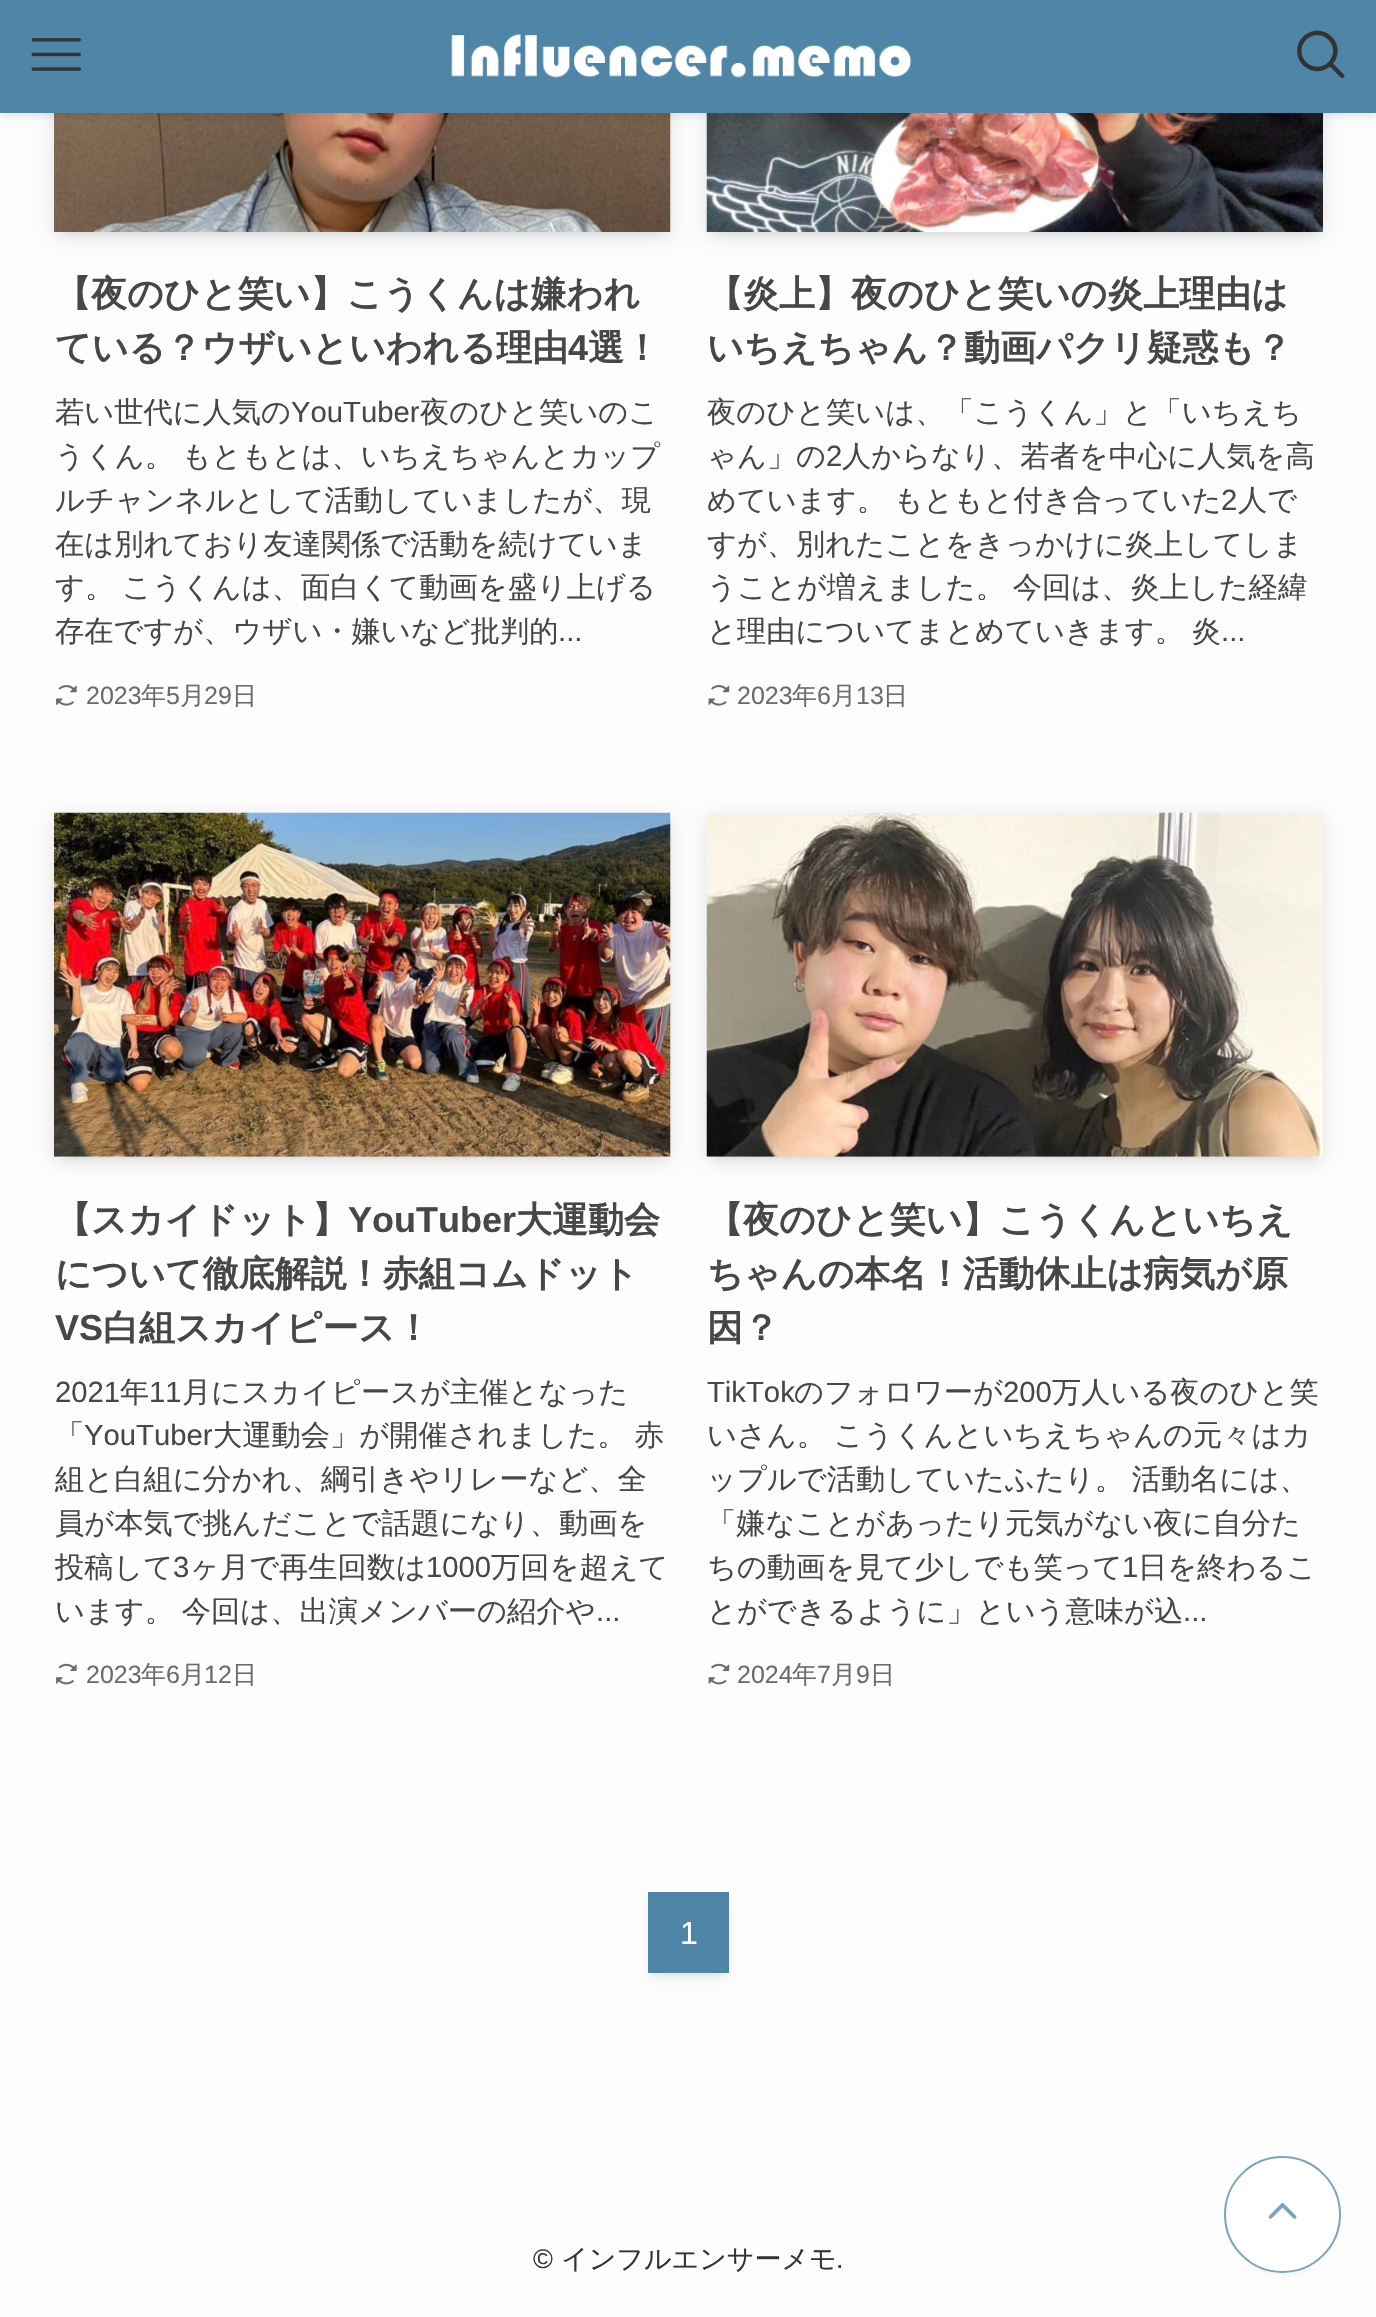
void draw(SkCanvas* c) {
SkPaint p;
p.setAntiAlias(true);
auto F=[&](const char* family, int weight, float size, bool italic = false){SkFontStyle style(weight, SkFontStyle::kNormal_Width,italic ? SkFontStyle::kItalic_Slant : SkFontStyle::kUpright_Slant);SkFont result(fontMgr->matchFamilyStyle(family, style), size);result.setSubpixel(true);return result;};
auto T=[&](const char* s, float x, float y, const SkFont& font){c->drawString(s, x, y, font, p);};
auto L=[&](const char* s, float x, float y, const SkFont& font, const SkPaint& ink, float letter, float word){std::vector<SkGlyphID> glyphs(font.countText(s, strlen(s), SkTextEncoding::kUTF8));std::vector<float> xs(glyphs.size());font.textToGlyphs(s, strlen(s), SkTextEncoding::kUTF8, glyphs);font.getXPos(glyphs, xs, x);float extra = 0;for (size_t i = 0; i < glyphs.size(); i++) {xs[i] += extra;extra += letter + word * (glyphs[i] == font.unicharToGlyph(' '));}c->drawTextBlob(SkTextBlob::MakeFromPosHGlyphs(glyphs, xs, y, font), 0, 0, ink);};
auto R=[&](float x, float y, float w, float h){c->drawRect(SkRect::MakeXYWH(x, y, w, h), p);};
auto I=[&](const char* path, float x, float y, float w, float h){auto image = SkImages::DeferredFromEncodedData(SkData::MakeFromFileName(path));c->drawImageRect(image, SkRect::MakeXYWH(x, y, w, h), SkSamplingOptions());};
c->clear(0xfffdfdfd);
p.setColor(0x1a000000);
p.setMaskFilter(SkMaskFilter::MakeBlur(kNormal_SkBlurStyle, 4.5));
c->drawRect(SkRect::MakeXYWH(63,-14,599,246),p);
p.setMaskFilter(nullptr);
p.setMaskFilter(SkMaskFilter::MakeBlur(kNormal_SkBlurStyle, 9));
c->drawRect(SkRect::MakeXYWH(54,-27,617,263),p);
p.setMaskFilter(nullptr);
I("4.png",54,113,617,119);
p.setMaskFilter(SkMaskFilter::MakeBlur(kNormal_SkBlurStyle, 4.5));
c->drawRect(SkRect::MakeXYWH(716,-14,598,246),p);
p.setMaskFilter(nullptr);
p.setMaskFilter(SkMaskFilter::MakeBlur(kNormal_SkBlurStyle, 9));
c->drawRect(SkRect::MakeXYWH(707,-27,616,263),p);
p.setMaskFilter(nullptr);
I("6.png",706,113,617,119);
p.setColor(0x1f000000);
p.setMaskFilter(SkMaskFilter::MakeBlur(kNormal_SkBlurStyle, 4.5));
c->drawRect(SkRect::MakeXYWH(0,2,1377,113),p);
p.setMaskFilter(nullptr);
p.setColor(0xff4f85a6);
R(0,0,1376,113);
I("1.png",31,38,50,33);
I("2.png",451,34,461,44);
I("3.png",1297,30,48,48);
auto f1 = F("WenQuanYi Zen Hei",700,36);
p.setColor(0xff474747);
T("【夜のひと笑い】こうくんは嫌われ",55,306,f1);
T("ている？ウザいといわれる理由",55,360,f1);
auto f2 = F("Liberation Sans",700,36);
T("4",568,360,f2);
T("選！",588,360,f1);
auto f3 = F("WenQuanYi Zen Hei",500,29.25);
T("若い世代に人気の",55,422,f3);
auto f4 = F("Liberation Sans",400,29.25);
T("YouTuber",291,422,f4);
T("夜のひと笑いのこ",420,422,f3);
L("うくん。 もともとは、いちえちゃんとカップ",55,466,f3,p,0,-1);
T("ルチャンネルとして活動していましたが、現",55,510,f3);
T("在は別れており友達関係で活動を続けていま",55,554,f3);
L("す。 こうくんは、面白くて動画を盛り上げる",55,597,f3,p,0,-1);
T("存在ですが、ウザい・嫌いなど批判的",55,641,f3);
T("...",558,641,f4);
I("5.png",56,685,21,21);
auto f5 = F("Liberation Sans",400,25);
p.setColor(0xff6b6b6b);
T("2023",86,704,f5);
auto f6 = F("WenQuanYi Zen Hei",500,25);
T("年",141,704,f6);
T("5",166,704,f5);
T("月",180,704,f6);
T("29",204,704,f5);
T("日",232,704,f6);
p.setColor(0xff474747);
T("【炎上】夜のひと笑いの炎上理由は",707,306,f1);
T("いちえちゃん？動画パクリ疑惑も？",707,360,f1);
T("夜のひと笑いは、「こうくん」と「いちえち",707,422,f3);
T("ゃん」の",707,466,f3);
T("2",826,466,f4);
T("人からなり、若者を中心に人気を高",842,466,f3);
L("めています。 もともと付き合っていた",707,510,f3,p,0,-1);
T("2",1221,510,f4);
T("人で",1238,510,f3);
T("すが、別れたことをきっかけに炎上してしま",707,554,f3);
L("うことが増えました。 今回は、炎上した経緯",707,597,f3,p,0,-1);
L("と理由についてまとめていきます。 炎",707,641,f3,p,0,-1);
T("...",1221,641,f4);
I("7.png",708,685,22,21);
p.setColor(0xff6b6b6b);
T("2023",737,704,f5);
T("年",792,704,f6);
T("6",817,704,f5);
T("月",831,704,f6);
T("13",856,704,f5);
T("日",883,704,f6);
p.setColor(0x1a000000);
p.setMaskFilter(SkMaskFilter::MakeBlur(kNormal_SkBlurStyle, 4.5));
c->drawRect(SkRect::MakeXYWH(63,830,599,327),p);
p.setMaskFilter(nullptr);
p.setMaskFilter(SkMaskFilter::MakeBlur(kNormal_SkBlurStyle, 9));
c->drawRect(SkRect::MakeXYWH(54,817,617,344),p);
p.setMaskFilter(nullptr);
I("8.png",54,812,617,345);
p.setColor(0xff474747);
T("【スカイドット】",55,1232,f1);
T("YouTuber",348,1232,f2);
T("大運動会",516,1232,f1);
T("について徹底解説！赤組コムドット",55,1286,f1);
T("VS",55,1340,f2);
T("白組スカイピース！",103,1340,f1);
T("2021",55,1402,f4);
T("年",120,1402,f3);
T("11",149,1402,f4);
T("月にスカイピースが主催となった",182,1402,f3);
T("「",55,1445,f3);
T("YouTuber",84,1445,f4);
L("大運動会」が開催されました。 赤",213,1445,f3,p,0,-1);
T("組と白組に分かれ、綱引きやリレーなど、全",55,1489,f3);
T("員が本気で挑んだことで話題になり、動画を",55,1533,f3);
T("投稿して",55,1577,f3);
T("3",173,1577,f4);
T("ヶ月で再生回数は",190,1577,f3);
T("1000",426,1577,f4);
T("万回を超えて",491,1577,f3);
L("います。 今回は、出演メンバーの紹介や",55,1621,f3,p,0,-1);
T("...",596,1621,f4);
I("9.png",56,1663,21,22);
p.setColor(0xff6b6b6b);
T("2023",86,1683,f5);
T("年",141,1683,f6);
T("6",166,1683,f5);
T("月",180,1683,f6);
T("12",204,1683,f5);
T("日",232,1683,f6);
p.setColor(0x1a000000);
p.setMaskFilter(SkMaskFilter::MakeBlur(kNormal_SkBlurStyle, 4.5));
c->drawRect(SkRect::MakeXYWH(716,830,598,327),p);
p.setMaskFilter(nullptr);
p.setMaskFilter(SkMaskFilter::MakeBlur(kNormal_SkBlurStyle, 9));
c->drawRect(SkRect::MakeXYWH(707,817,616,344),p);
p.setMaskFilter(nullptr);
I("10.png",706,812,617,345);
p.setColor(0xff474747);
T("【夜のひと笑い】こうくんといちえ",707,1232,f1);
T("ちゃんの本名！活動休止は病気が原",707,1286,f1);
T("因？",707,1340,f1);
T("TikTok",707,1402,f4);
T("のフォロワーが",794,1402,f3);
T("200",1003,1402,f4);
T("万人いる夜のひと笑",1052,1402,f3);
L("いさん。 こうくんといちえちゃんの元々はカ",707,1445,f3,p,0,-1);
L("ップルで活動していたふたり。 活動名には、",707,1489,f3,p,0,-1);
T("「嫌なことがあったり元気がない夜に自分た",707,1533,f3);
T("ちの動画を見て少しでも笑って",707,1577,f3);
T("1",1122,1577,f4);
T("日を終わるこ",1138,1577,f3);
T("とができるように」という意味が込",707,1621,f3);
T("...",1183,1621,f4);
I("11.png",708,1663,22,22);
p.setColor(0xff6b6b6b);
T("2024",737,1683,f5);
T("年",792,1683,f6);
T("7",817,1683,f5);
T("月",831,1683,f6);
T("9",856,1683,f5);
T("日",870,1683,f6);
p.setColor(0x1a000000);
p.setMaskFilter(SkMaskFilter::MakeBlur(kNormal_SkBlurStyle, 4.5));
c->drawRect(SkRect::MakeXYWH(657,1910,63,63),p);
p.setMaskFilter(nullptr);
p.setColor(0x0d000000);
p.setMaskFilter(SkMaskFilter::MakeBlur(kNormal_SkBlurStyle, 4.5));
c->drawRect(SkRect::MakeXYWH(648,1897,81,81),p);
p.setMaskFilter(nullptr);
p.setColor(0xff4f85a6);
R(648,1892,81,81);
auto f7 = F("Liberation Sans",400,32);
p.setColor(0xffffffff);
T("1",680,1944,f7);
auto f8 = F("Liberation Sans",400,27);
p.setColor(0xff333333);
T("©",533,2268,f8);
auto f9 = F("WenQuanYi Zen Hei",500,27);
T("インフルエンサーメモ",561,2268,f9);
T(".",836,2268,f8);
p.setColor(0x1a3f3f3f);
p.setMaskFilter(SkMaskFilter::MakeBlur(kNormal_SkBlurStyle, 4.5));
c->drawRoundRect(SkRect::MakeXYWH(1233,2174,99,99),49.5,49.5,p);
p.setMaskFilter(nullptr);
p.setColor(0xffffffff);
c->drawCircle(1282.5,2214.5,57.5,p);
p.setStroke(true);
p.setStrokeWidth(2);
p.setColor(0xff7ba3bc);
c->drawCircle(1282.5,2214.5,57.5,p);
I("12.png",1268,2202,29,17);
}
